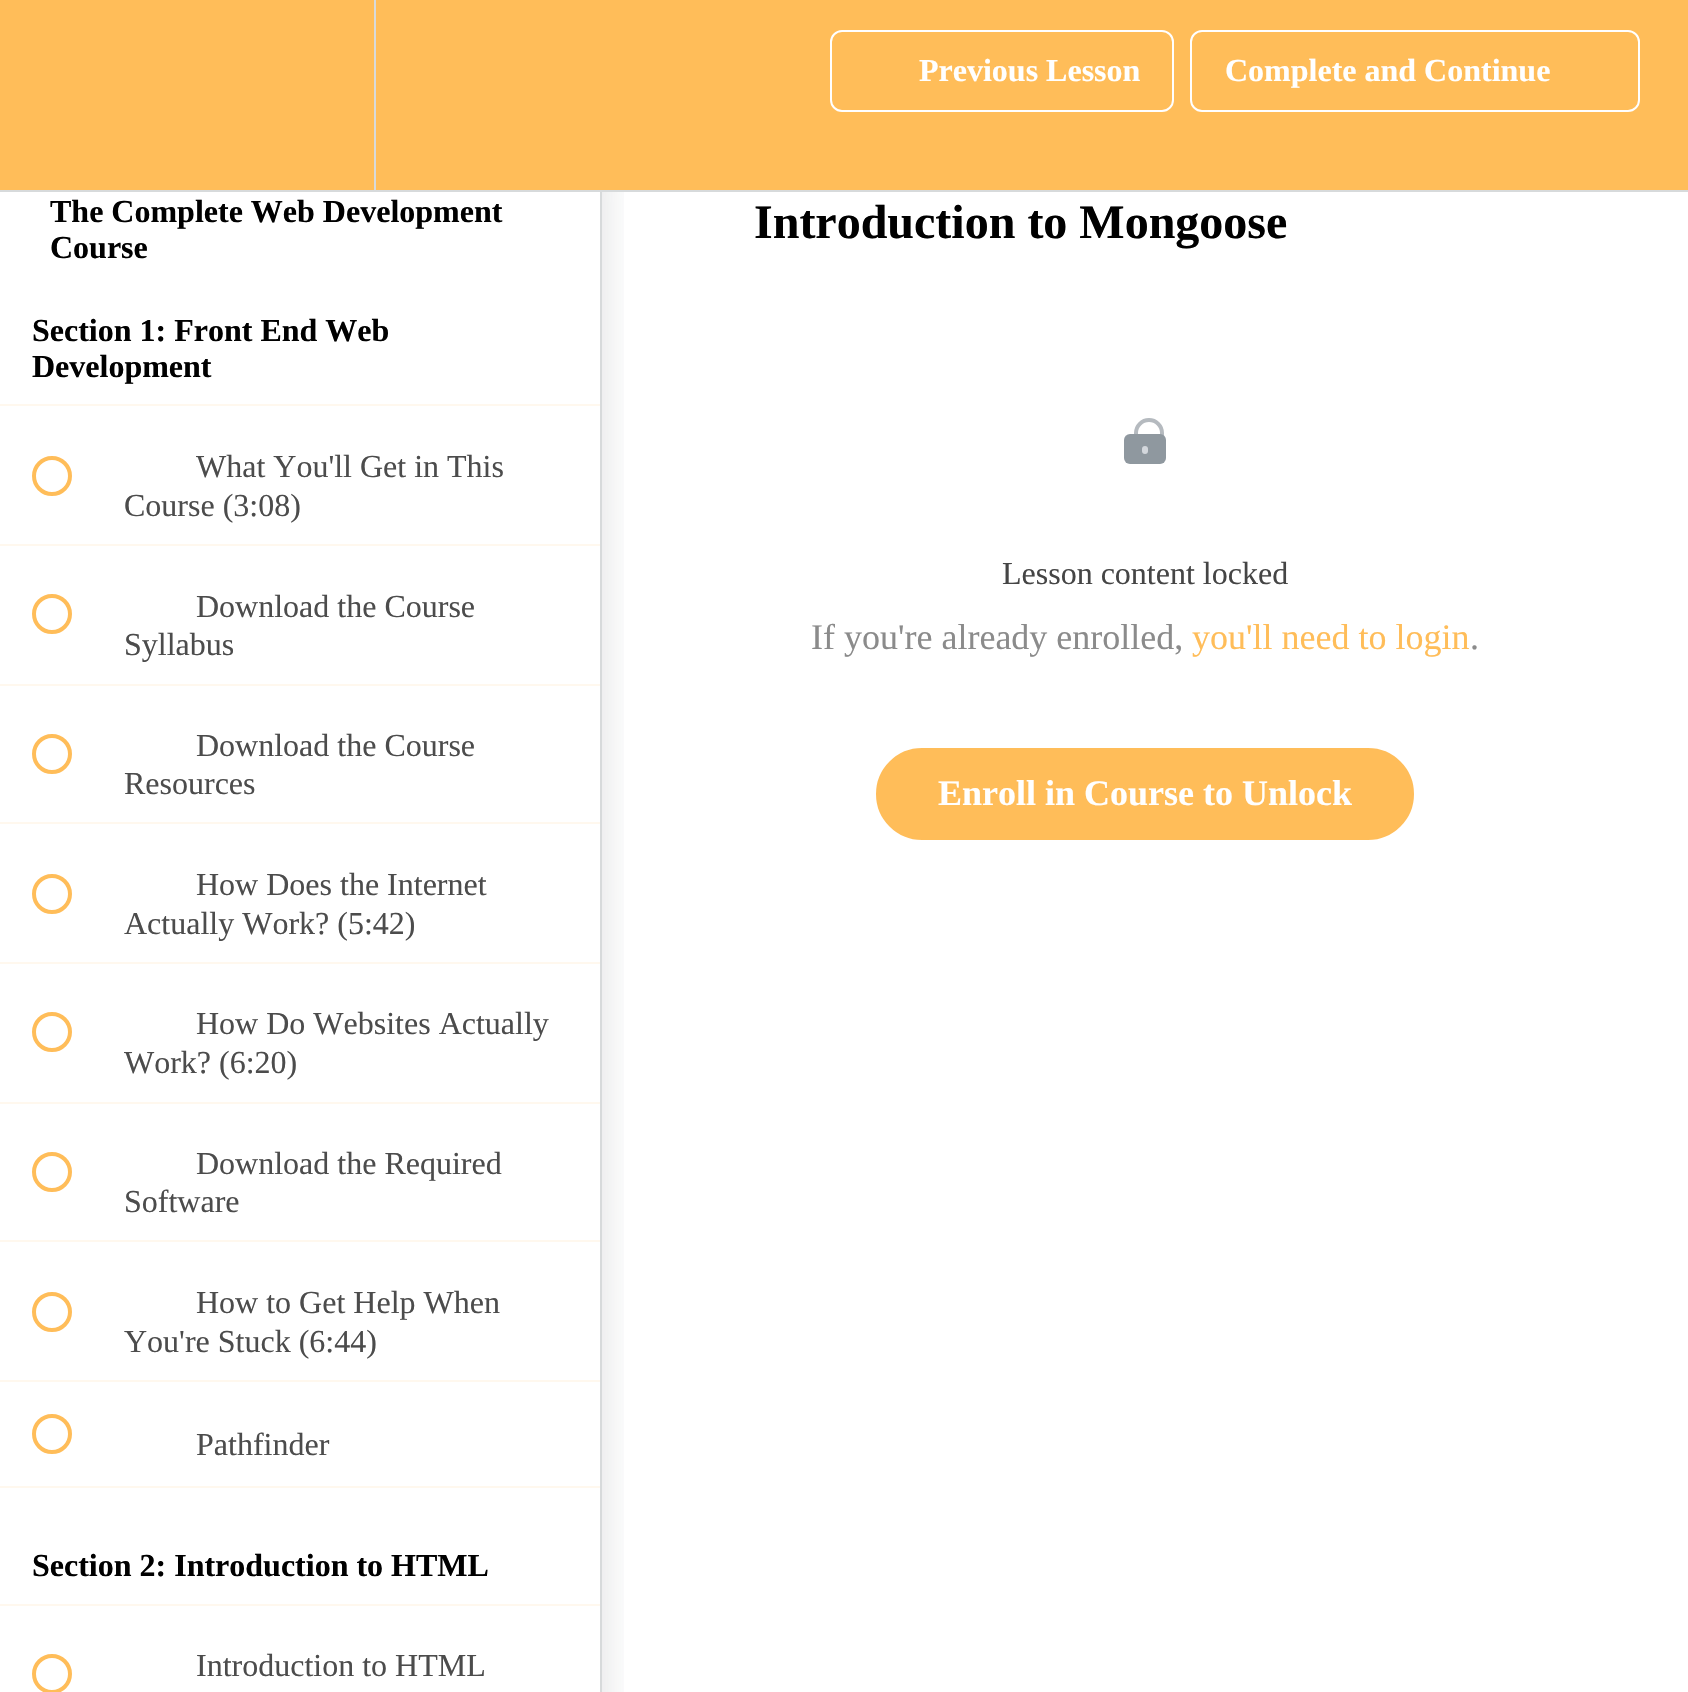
void draw(SkCanvas* c) {
SkPaint p;
p.setAntiAlias(true);
auto F=[&](const char* family, int weight, float size, bool italic = false){SkFontStyle style(weight, SkFontStyle::kNormal_Width,italic ? SkFontStyle::kItalic_Slant : SkFontStyle::kUpright_Slant);SkFont result(fontMgr->matchFamilyStyle(family, style), size);result.setSubpixel(true);return result;};
auto T=[&](const char* s, float x, float y, const SkFont& font){c->drawString(s, x, y, font, p);};
auto R=[&](float x, float y, float w, float h){c->drawRect(SkRect::MakeXYWH(x, y, w, h), p);};
auto Q=[&](float x, float y, float w, float h, float radius){c->drawRoundRect(SkRect::MakeXYWH(x, y, w, h), radius, radius, p);};
c->clear(0xffffffff);
c->save();
c->clipRect(SkRect::MakeXYWH(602,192,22,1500));
p.setColor(0x2620272d);
p.setMaskFilter(SkMaskFilter::MakeBlur(kNormal_SkBlurStyle, 20));
c->drawRect(SkRect::MakeXYWH(0,156,602,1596),p);
p.setMaskFilter(nullptr);
c->restore();
p.setColor(0xffffbd59);
R(0,0,1688,190);
p.setColor(0xffd7dadb);
R(0,190,1688,2);
R(374,0,2,190);
p.setStroke(true);
p.setStrokeWidth(2);
p.setColor(0xffffffff);
c->drawRoundRect(SkRect::MakeXYWH(831,31,342,80),11,11,p);
auto f1 = F("Liberation Serif",700,32);
p.setStroke(false);
T("Previous Lesson",919,81,f1);
p.setStroke(true);
c->drawRoundRect(SkRect::MakeXYWH(1191,31,448,80),11,11,p);
p.setStroke(false);
T("Complete and Continue",1225,81,f1);
p.setColor(0xffd7dadb);
R(600,192,2,1500);
p.setColor(0xff000000);
T("The Complete Web Development",50,222,f1);
T("Course",50,258,f1);
p.setColor(0xfffff8ee);
R(0,404,600,2);
p.setColor(0xff000000);
T("Section 1: Front End Web",32,341,f1);
T("Development",32,377,f1);
p.setColor(0xfffff8ee);
R(0,544,600,2);
p.setStroke(true);
p.setStrokeWidth(4);
p.setColor(0xffffbd59);
c->drawCircle(52,476,18,p);
auto f2 = F("Liberation Serif",400,32);
p.setStroke(false);
p.setColor(0xff4c4c4c);
T("What You'll Get in This",196,477,f2);
T("Course (3:08)",124,516,f2);
p.setColor(0xfffff8ee);
R(0,684,600,2);
p.setStroke(true);
p.setColor(0xffffbd59);
c->drawCircle(52,614,18,p);
p.setStroke(false);
p.setColor(0xff4c4c4c);
T("Download the Course",196,617,f2);
T("Syllabus",124,655,f2);
p.setColor(0xfffff8ee);
R(0,822,600,2);
p.setStroke(true);
p.setColor(0xffffbd59);
c->drawCircle(52,754,18,p);
p.setStroke(false);
p.setColor(0xff4c4c4c);
T("Download the Course",196,756,f2);
T("Resources",124,794,f2);
p.setColor(0xfffff8ee);
R(0,962,600,2);
p.setStroke(true);
p.setColor(0xffffbd59);
c->drawCircle(52,894,18,p);
p.setStroke(false);
p.setColor(0xff4c4c4c);
T("How Does the Internet",196,895,f2);
T("Actually Work? (5:42)",124,934,f2);
p.setColor(0xfffff8ee);
R(0,1102,600,2);
p.setStroke(true);
p.setColor(0xffffbd59);
c->drawCircle(52,1032,18,p);
p.setStroke(false);
p.setColor(0xff4c4c4c);
T("How Do Websites Actually",196,1034,f2);
T("Work? (6:20)",124,1073,f2);
p.setColor(0xfffff8ee);
R(0,1240,600,2);
p.setStroke(true);
p.setColor(0xffffbd59);
c->drawCircle(52,1172,18,p);
p.setStroke(false);
p.setColor(0xff4c4c4c);
T("Download the Required",196,1174,f2);
T("Software",124,1212,f2);
p.setColor(0xfffff8ee);
R(0,1380,600,2);
p.setStroke(true);
p.setColor(0xffffbd59);
c->drawCircle(52,1312,18,p);
p.setStroke(false);
p.setColor(0xff4c4c4c);
T("How to Get Help When",196,1313,f2);
T("You're Stuck (6:44)",124,1352,f2);
p.setColor(0xfffff8ee);
R(0,1486,600,2);
p.setStroke(true);
p.setColor(0xffffbd59);
c->drawCircle(52,1434,18,p);
p.setStroke(false);
p.setColor(0xff4c4c4c);
T("Pathfinder",196,1455,f2);
p.setColor(0xfffff8ee);
R(0,1604,600,2);
p.setColor(0xff000000);
T("Section 2: Introduction to HTML",32,1576,f1);
p.setStroke(true);
p.setColor(0xffffbd59);
c->drawCircle(52,1674,18,p);
p.setStroke(false);
p.setColor(0xff4c4c4c);
T("Introduction to HTML",196,1676,f2);
auto f3 = F("Liberation Serif",700,48);
p.setColor(0xff000000);
T("Introduction to Mongoose",754,238,f3);
p.setStroke(true);
p.setColor(0xffb5babf);
c->drawRoundRect(SkRect::MakeXYWH(1136,420,26,40),13,13,p);
p.setStroke(false);
p.setColor(0xff8f989f);
Q(1124,434,42,30,6);
p.setColor(0xffd3d7dc);
Q(1142,446,6,8,3);
p.setColor(0xff454545);
T("Lesson content locked",1002,584,f2);
auto f4 = F("Liberation Serif",400,36);
p.setColor(0xff8b8b8b);
T("If you're already enrolled,",811,649,f4);
p.setColor(0xffffbd59);
T("you'll need to login",1192,649,f4);
p.setColor(0xff8b8b8b);
T(".",1470,649,f4);
p.setColor(0xffffbd59);
c->drawRoundRect(SkRect::MakeXYWH(877,749,536,90),45,45,p);
p.setStroke(true);
p.setStrokeWidth(2);
c->drawRoundRect(SkRect::MakeXYWH(877,749,536,90),45,45,p);
auto f5 = F("Liberation Serif",700,36);
p.setStroke(false);
p.setColor(0xffffffff);
T("Enroll in Course to Unlock",938,805,f5);
}
